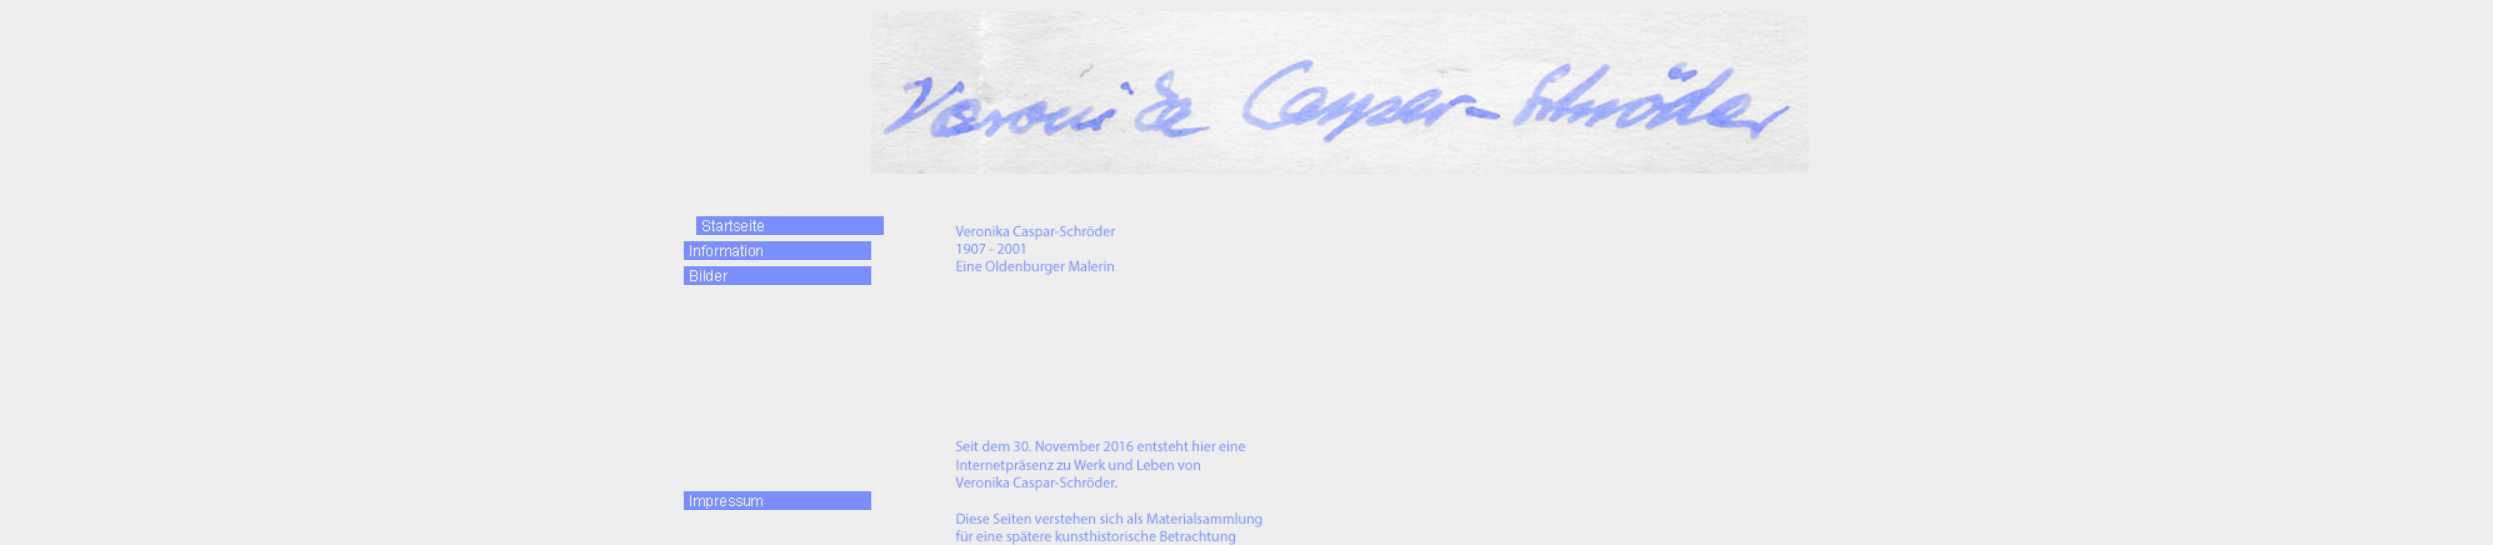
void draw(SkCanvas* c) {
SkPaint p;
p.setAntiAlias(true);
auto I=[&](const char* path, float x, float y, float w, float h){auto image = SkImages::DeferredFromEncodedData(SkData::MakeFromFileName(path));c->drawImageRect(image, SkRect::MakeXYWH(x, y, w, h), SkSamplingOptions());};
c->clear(0xffeeeeee);
I("1.png",871,11,938,163);
I("2.png",696,216,188,19);
I("3.png",955,224,308,321);
I("4.png",683,241,189,19);
I("5.png",683,266,189,19);
I("6.png",683,491,189,19);
}
